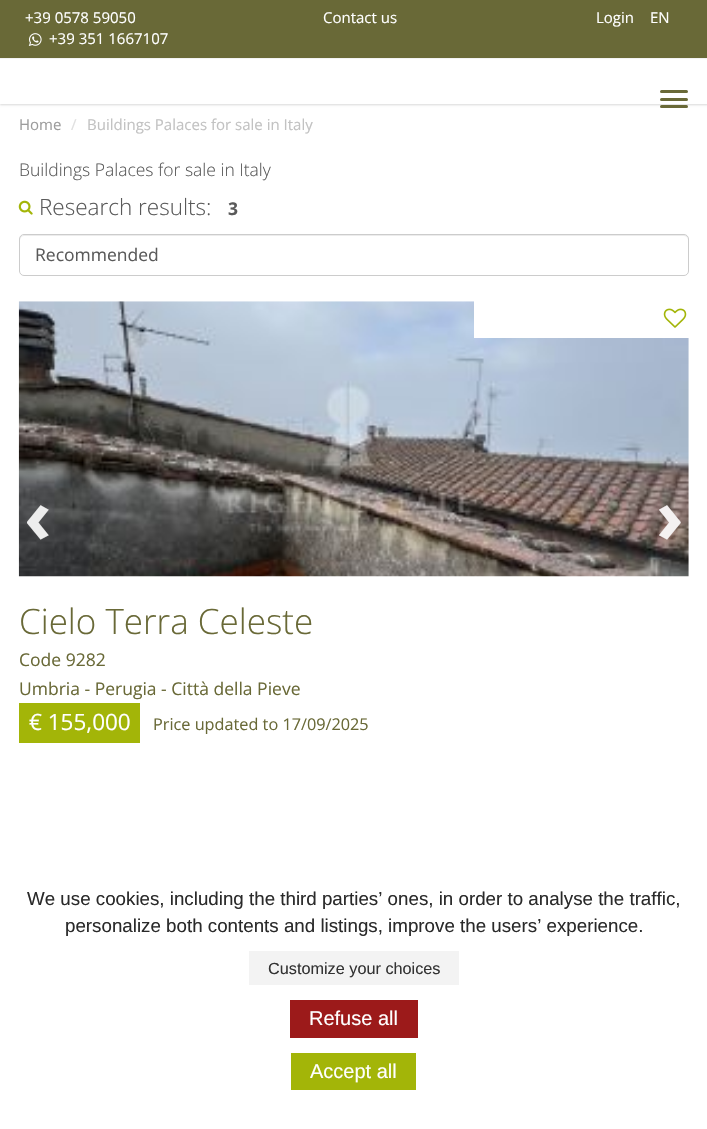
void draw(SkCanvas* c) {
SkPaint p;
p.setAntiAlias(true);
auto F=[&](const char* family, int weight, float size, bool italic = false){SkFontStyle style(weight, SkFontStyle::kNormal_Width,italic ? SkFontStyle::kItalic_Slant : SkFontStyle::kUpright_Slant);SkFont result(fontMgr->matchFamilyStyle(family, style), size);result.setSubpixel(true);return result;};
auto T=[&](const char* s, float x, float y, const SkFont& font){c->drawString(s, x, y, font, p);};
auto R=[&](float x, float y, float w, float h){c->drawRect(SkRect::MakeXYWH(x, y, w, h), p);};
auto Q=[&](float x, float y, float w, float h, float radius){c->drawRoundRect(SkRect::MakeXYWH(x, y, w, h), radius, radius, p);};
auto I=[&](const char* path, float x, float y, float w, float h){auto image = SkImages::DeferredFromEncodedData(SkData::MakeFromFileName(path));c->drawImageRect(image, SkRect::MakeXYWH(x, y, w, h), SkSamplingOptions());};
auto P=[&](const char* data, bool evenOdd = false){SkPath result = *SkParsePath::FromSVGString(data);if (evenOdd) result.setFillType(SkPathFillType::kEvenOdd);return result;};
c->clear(0xffffffff);
c->save();
c->clipPath(P("M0 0h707v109h-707zm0 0h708v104h-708z",true),true);
p.setColor(0x26000000);
p.setMaskFilter(SkMaskFilter::MakeBlur(kNormal_SkBlurStyle, 1));
c->drawRect(SkRect::MakeXYWH(0,1,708,104),p);
p.setMaskFilter(nullptr);
c->restore();
p.setColor(0xff696937);
R(0,0,707,58);
p.setColor(0xfff3f3f3);
R(0,58,707,1);
auto f1 = F("Open Sans",400,15);
p.setColor(0xffffffff);
T("+39 0578 59050",25,23,f1);
I("1.png",28,33,14,13);
T("+39 351 1667107",49,44,f1);
T("Contact us",323,23,f1);
T("Login",596,23,f1);
T("EN",650,23,f1);
p.setColor(0xff696937);
Q(660,90,28,3,1.5);
Q(660,98,28,3,1.5);
Q(660,105,28,3,1.5);
p.setColor(0xff9c9c9c);
T("Home",19,130,f1);
p.setColor(0xffe0e0e0);
T("/",71,130,f1);
p.setColor(0xffc2c2c2);
T("Buildings Palaces for sale in Italy",87,130,f1);
auto f2 = F("Open Sans",300,17.5);
p.setColor(0xff5a5a5a);
T("Buildings Palaces for sale in Italy",19,176,f2);
I("2.png",18,200,15,15);
auto f3 = F("Open Sans",300,22.5);
T("Research results:",39,215,f3);
auto f4 = F("Open Sans",700,17.5);
T("3",228,215,f4);
p.setColor(0xffececec);
c->drawPath(P("M24 236h660c2 0 4 2 4 4c0-3-1-5-4-5h-660l-3 1l-1 1v3c0-2 2-4 4-4z"),p);
p.setStroke(true);
p.setStrokeWidth(1);
p.setColor(0xffcccccc);
c->drawRoundRect(SkRect::MakeXYWH(19.5,234.5,669,41),4.5,4.5,p);
auto f5 = F("Open Sans",400,17.5);
p.setStroke(false);
p.setColor(0xff5a5a5a);
T("Recommended",35,261,f5);
I("4.png",18,301,671,276);
p.setColor(0xffffffff);
R(474,301,215,37);
I("3.png",663,308,24,20);
auto f6 = F("Open Sans",700,75);
p.setColor(0xffededed);
T("‹",24,543,f6);
p.setColor(0xfff4f1f1);
T("›",656,543,f6);
auto f7 = F("Open Sans",300,35);
p.setColor(0xff696937);
T("Cielo Terra Celeste",19,634,f7);
T("Code 9282",19,666,f5);
T("Umbria - Perugia - Città della Pieve",19,695,f5);
p.setColor(0xffa3b508);
R(19,703,121,40);
auto f8 = F("Open Sans",400,22.5);
p.setColor(0xffffffff);
T("€ 155,000",29,730,f8);
auto f9 = F("Open Sans",400,16.25);
p.setColor(0xff696937);
T("Price updated to 17/09/2025",153,730,f9);
auto f10 = F("Liberation Sans",400,18.75);
p.setColor(0xff2a2a2a);
T("We use cookies, including the third parties’ ones, in order to analyse the traffic,",27,905,f10);
T("personalize both contents and listings, improve the users’ experience.",65,932,f10);
p.setColor(0xfff3f3f3);
R(249,951,210,34);
auto f11 = F("Liberation Sans",400,16.25);
p.setColor(0xff333333);
T("Customize your choices",268,974,f11);
p.setColor(0xff9c1a1a);
R(290,1000,128,38);
auto f12 = F("Liberation Sans",400,20);
p.setColor(0xffffffff);
T("Refuse all",309,1025,f12);
p.setColor(0xffa3b508);
R(291,1053,125,37);
p.setColor(0xffffffff);
T("Accept all",310,1078,f12);
}
